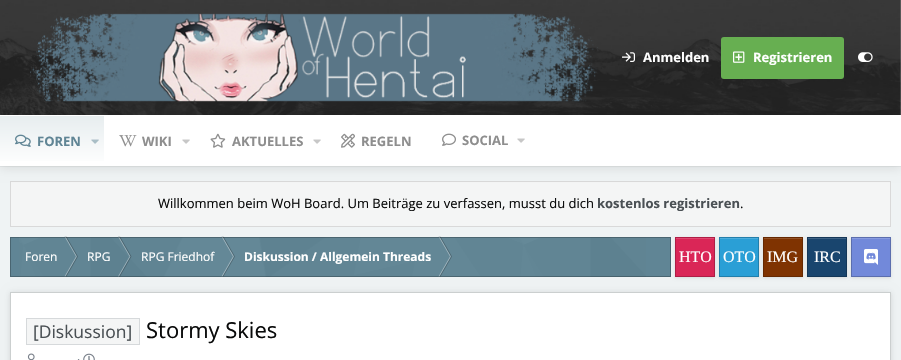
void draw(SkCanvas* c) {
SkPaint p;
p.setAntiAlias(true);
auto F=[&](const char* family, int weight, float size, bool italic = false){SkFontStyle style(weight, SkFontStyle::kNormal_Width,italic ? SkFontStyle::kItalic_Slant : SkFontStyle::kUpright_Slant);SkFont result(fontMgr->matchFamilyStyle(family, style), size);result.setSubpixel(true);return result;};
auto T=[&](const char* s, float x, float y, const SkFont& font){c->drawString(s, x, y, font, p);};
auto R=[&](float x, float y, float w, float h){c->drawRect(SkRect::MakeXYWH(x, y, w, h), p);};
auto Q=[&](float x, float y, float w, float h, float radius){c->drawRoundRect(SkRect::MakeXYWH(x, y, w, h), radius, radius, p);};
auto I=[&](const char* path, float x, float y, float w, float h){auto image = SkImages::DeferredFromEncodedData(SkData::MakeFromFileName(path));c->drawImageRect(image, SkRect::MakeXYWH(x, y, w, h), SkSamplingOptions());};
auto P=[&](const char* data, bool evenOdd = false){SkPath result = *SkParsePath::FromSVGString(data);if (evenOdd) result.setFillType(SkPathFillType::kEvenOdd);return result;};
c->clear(0xffffffff);
I("1.png",0,0,901,115);
I("2.png",30,13,568,89);
I("3.png",622,52,13,10);
auto f1 = F("Open Sans",700,13);
p.setColor(0xffffffff);
T("Anmelden",643,62,f1);
p.setColor(0xff67af51);
Q(721,37,123,42,3);
I("4.png",733,51,12,12);
p.setColor(0xffffffff);
T("Registrieren",753,62,f1);
I("5.png",858,52,15,10);
p.setColor(0xffe3e7e8);
R(0,166,901,1);
p.setColor(0xffeff3f4);
R(0,167,901,193);
p.setColor(0xfff4f5f5);
c->drawRect(SkRect::MakeXYWH(10.5,181.5,880,45),p);
p.setStroke(true);
p.setStrokeWidth(1);
p.setColor(0xffd9d9d9);
c->drawRect(SkRect::MakeXYWH(10.5,181.5,880,45),p);
p.setStroke(false);
p.setColor(0x1a000000);
p.setMaskFilter(SkMaskFilter::MakeBlur(kNormal_SkBlurStyle, 5));
c->drawRect(SkRect::MakeXYWH(0,117,901,51),p);
p.setMaskFilter(nullptr);
p.setColor(0xffffffff);
R(0,115,901,51);
{
const SkColor colors[] = {0xffe7edef,0xffffffff};
const float stops[] = {0,1};
const SkPoint ends[] = {{52,116}, {52,166}};
p.setShader(SkGradientShader::MakeLinear(ends, colors, stops, 2, SkTileMode::kClamp));
p.setAlpha(255);
}
R(0,116,104,45);
I("6.png",15,134,16,13);
p.setShader(nullptr);
p.setColor(0xff608595);
T("FOREN",37,146,f1);
I("7.png",91,139,8,5);
I("8.png",119,135,18,12);
p.setColor(0xff8e8e8e);
T("WIKI",142,146,f1);
I("9.png",182,139,8,5);
I("10.png",210,133,16,15);
T("AKTUELLES",232,146,f1);
I("9.png",313,139,8,5);
I("11.png",341,133,14,15);
T("REGELN",361,146,f1);
I("12.png",442,133,14,13);
T("SOCIAL",462,145,f1);
I("9.png",517,138,8,5);
auto f2 = F("Open Sans",400,13);
p.setColor(0xff090a0a);
T("Willkommen beim WoH Board. Um Beiträge zu verfassen, musst du dich",158,208,f2);
p.setColor(0xff4a5054);
T("kostenlos registrieren",597,208,f1);
p.setColor(0xff090a0a);
T(".",740,208,f2);
p.setColor(0xff608595);
R(10,237,661,40);
I("13.png",19,237,627,40);
p.setColor(0xffa0b6bf);
c->drawPath(P("M64.5 236.5h1l11.5 20h-1z"),p);
p.setColor(0x40000000);
c->drawPath(P("M65.5 236.5h1l11.5 20h-1z"),p);
p.setColor(0xffa0b6bf);
c->drawPath(P("M76 256.5h1l-11.5 20h-1z"),p);
p.setColor(0x40000000);
c->drawPath(P("M77 256.5h1l-11.5 20h-1z"),p);
p.setColor(0xffa0b5be);
c->drawPath(P("M118 236.5h1l11.5 20h-1z"),p);
p.setColor(0x40000000);
c->drawPath(P("M119 236.5h1l11.5 20h-1z"),p);
p.setColor(0xff9eb3bd);
c->drawPath(P("M129.5 256.5h1l-11.5 20h-1z"),p);
p.setColor(0x40000000);
c->drawPath(P("M130.5 256.5h1l-11.5 20h-1z"),p);
p.setColor(0xffa2b7c1);
c->drawPath(P("M221.5 236.5h1l11.5 20h-1z"),p);
p.setColor(0x40000000);
c->drawPath(P("M222.5 236.5h1l11.5 20h-1z"),p);
p.setColor(0xffa2b7c1);
c->drawPath(P("M233 256.5h1l-11.5 20h-1z"),p);
p.setColor(0x40000000);
c->drawPath(P("M234 256.5h1l-11.5 20h-1z"),p);
p.setColor(0xffa1b7c0);
c->drawPath(P("M438.5 236.5h1l11.5 20h-1z"),p);
p.setColor(0x40000000);
c->drawPath(P("M439.5 236.5h1l11.5 20h-1z"),p);
p.setColor(0xffa1b7c0);
c->drawPath(P("M450 256.5h1l-11.5 20h-1z"),p);
p.setColor(0x40000000);
c->drawPath(P("M451 256.5h1l-11.5 20h-1z"),p);
p.setStroke(true);
p.setColor(0x40020303);
c->drawRect(SkRect::MakeXYWH(10.5,237.5,660,39),p);
auto f3 = F("Open Sans",400,12);
p.setStroke(false);
p.setColor(0xffffffff);
T("Foren",25,261,f3);
T("RPG",87,261,f3);
T("RPG Friedhof",141,261,f3);
auto f4 = F("Open Sans",700,12);
T("Diskussion / Allgemein Threads",244,261,f4);
p.setColor(0x1a000000);
p.setMaskFilter(SkMaskFilter::MakeBlur(kNormal_SkBlurStyle, 1.5));
c->drawRect(SkRect::MakeXYWH(675,238,40,40),p);
p.setMaskFilter(nullptr);
p.setColor(0xffda2657);
R(676,239,38,37);
p.setColor(0xffe04770);
R(676,238,38,1);
p.setStroke(true);
p.setColor(0xffae1e46);
c->drawRect(SkRect::MakeXYWH(675.5,237.5,39,39),p);
auto f5 = F("Liberation Serif",400,16);
p.setStroke(false);
p.setColor(0xffffffff);
T("HTO",679,262,f5);
p.setColor(0x1a000000);
p.setMaskFilter(SkMaskFilter::MakeBlur(kNormal_SkBlurStyle, 1.5));
c->drawRect(SkRect::MakeXYWH(719,238,40,40),p);
p.setMaskFilter(nullptr);
p.setColor(0xff2a9fd6);
R(720,239,38,37);
p.setColor(0xff4aaddc);
R(720,238,38,1);
p.setStroke(true);
p.setColor(0xff227fab);
c->drawRect(SkRect::MakeXYWH(719.5,237.5,39,39),p);
p.setStroke(false);
p.setColor(0xffffffff);
T("OTO",723,262,f5);
p.setColor(0x1a000000);
p.setMaskFilter(SkMaskFilter::MakeBlur(kNormal_SkBlurStyle, 1.5));
c->drawRect(SkRect::MakeXYWH(763,238,40,40),p);
p.setMaskFilter(nullptr);
p.setColor(0xff7f3301);
R(764,239,38,37);
p.setColor(0xff925227);
R(764,238,38,1);
p.setStroke(true);
p.setColor(0xff662901);
c->drawRect(SkRect::MakeXYWH(763.5,237.5,39,39),p);
p.setStroke(false);
p.setColor(0xffffffff);
T("IMG",767,262,f5);
p.setColor(0x1a000000);
p.setMaskFilter(SkMaskFilter::MakeBlur(kNormal_SkBlurStyle, 1.5));
c->drawRect(SkRect::MakeXYWH(807,238,40,40),p);
p.setMaskFilter(nullptr);
p.setColor(0xff19456e);
R(808,239,38,37);
p.setColor(0xff3c6184);
R(808,238,38,1);
p.setStroke(true);
p.setColor(0xff143758);
c->drawRect(SkRect::MakeXYWH(807.5,237.5,39,39),p);
p.setStroke(false);
p.setColor(0xffffffff);
T("IRC",814,262,f5);
p.setColor(0x1a000000);
p.setMaskFilter(SkMaskFilter::MakeBlur(kNormal_SkBlurStyle, 1.5));
c->drawRect(SkRect::MakeXYWH(851,238,40,40),p);
p.setMaskFilter(nullptr);
p.setColor(0xff7289da);
R(852,239,38,37);
p.setColor(0xff879be0);
R(852,238,38,1);
I("14.png",864,249,14,16);
p.setStroke(true);
p.setColor(0xff5b6eae);
c->drawRect(SkRect::MakeXYWH(851.5,237.5,39,39),p);
p.setStroke(false);
p.setColor(0x14000000);
p.setMaskFilter(SkMaskFilter::MakeBlur(kNormal_SkBlurStyle, 1.5));
c->drawRect(SkRect::MakeXYWH(10,293,881,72),p);
p.setMaskFilter(nullptr);
p.setColor(0x0f000000);
p.setMaskFilter(SkMaskFilter::MakeBlur(kNormal_SkBlurStyle, 4));
c->drawRect(SkRect::MakeXYWH(10,292,881,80),p);
p.setMaskFilter(nullptr);
p.setColor(0xffffffff);
c->drawRect(SkRect::MakeXYWH(10.5,292.5,880,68),p);
p.setStroke(true);
p.setColor(0xffcbcfcf);
c->drawRect(SkRect::MakeXYWH(10.5,292.5,880,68),p);
p.setStroke(false);
p.setColor(0xfff4f5f5);
c->drawRect(SkRect::MakeXYWH(26.5,318.5,113,26),p);
p.setStroke(true);
p.setColor(0xffd6d9db);
c->drawRect(SkRect::MakeXYWH(26.5,318.5,113,26),p);
auto f6 = F("Open Sans",400,17.5);
p.setStroke(false);
p.setColor(0xff4a5054);
T("[Diskussion]",33,338,f6);
auto f7 = F("Open Sans",400,22);
p.setColor(0xff090a0a);
T("Stormy Skies",146,338,f7);
I("15.png",27,353,8,7);
p.setColor(0xff79808a);
T("·",77,364,f3);
I("16.png",83,353,12,7);
}
